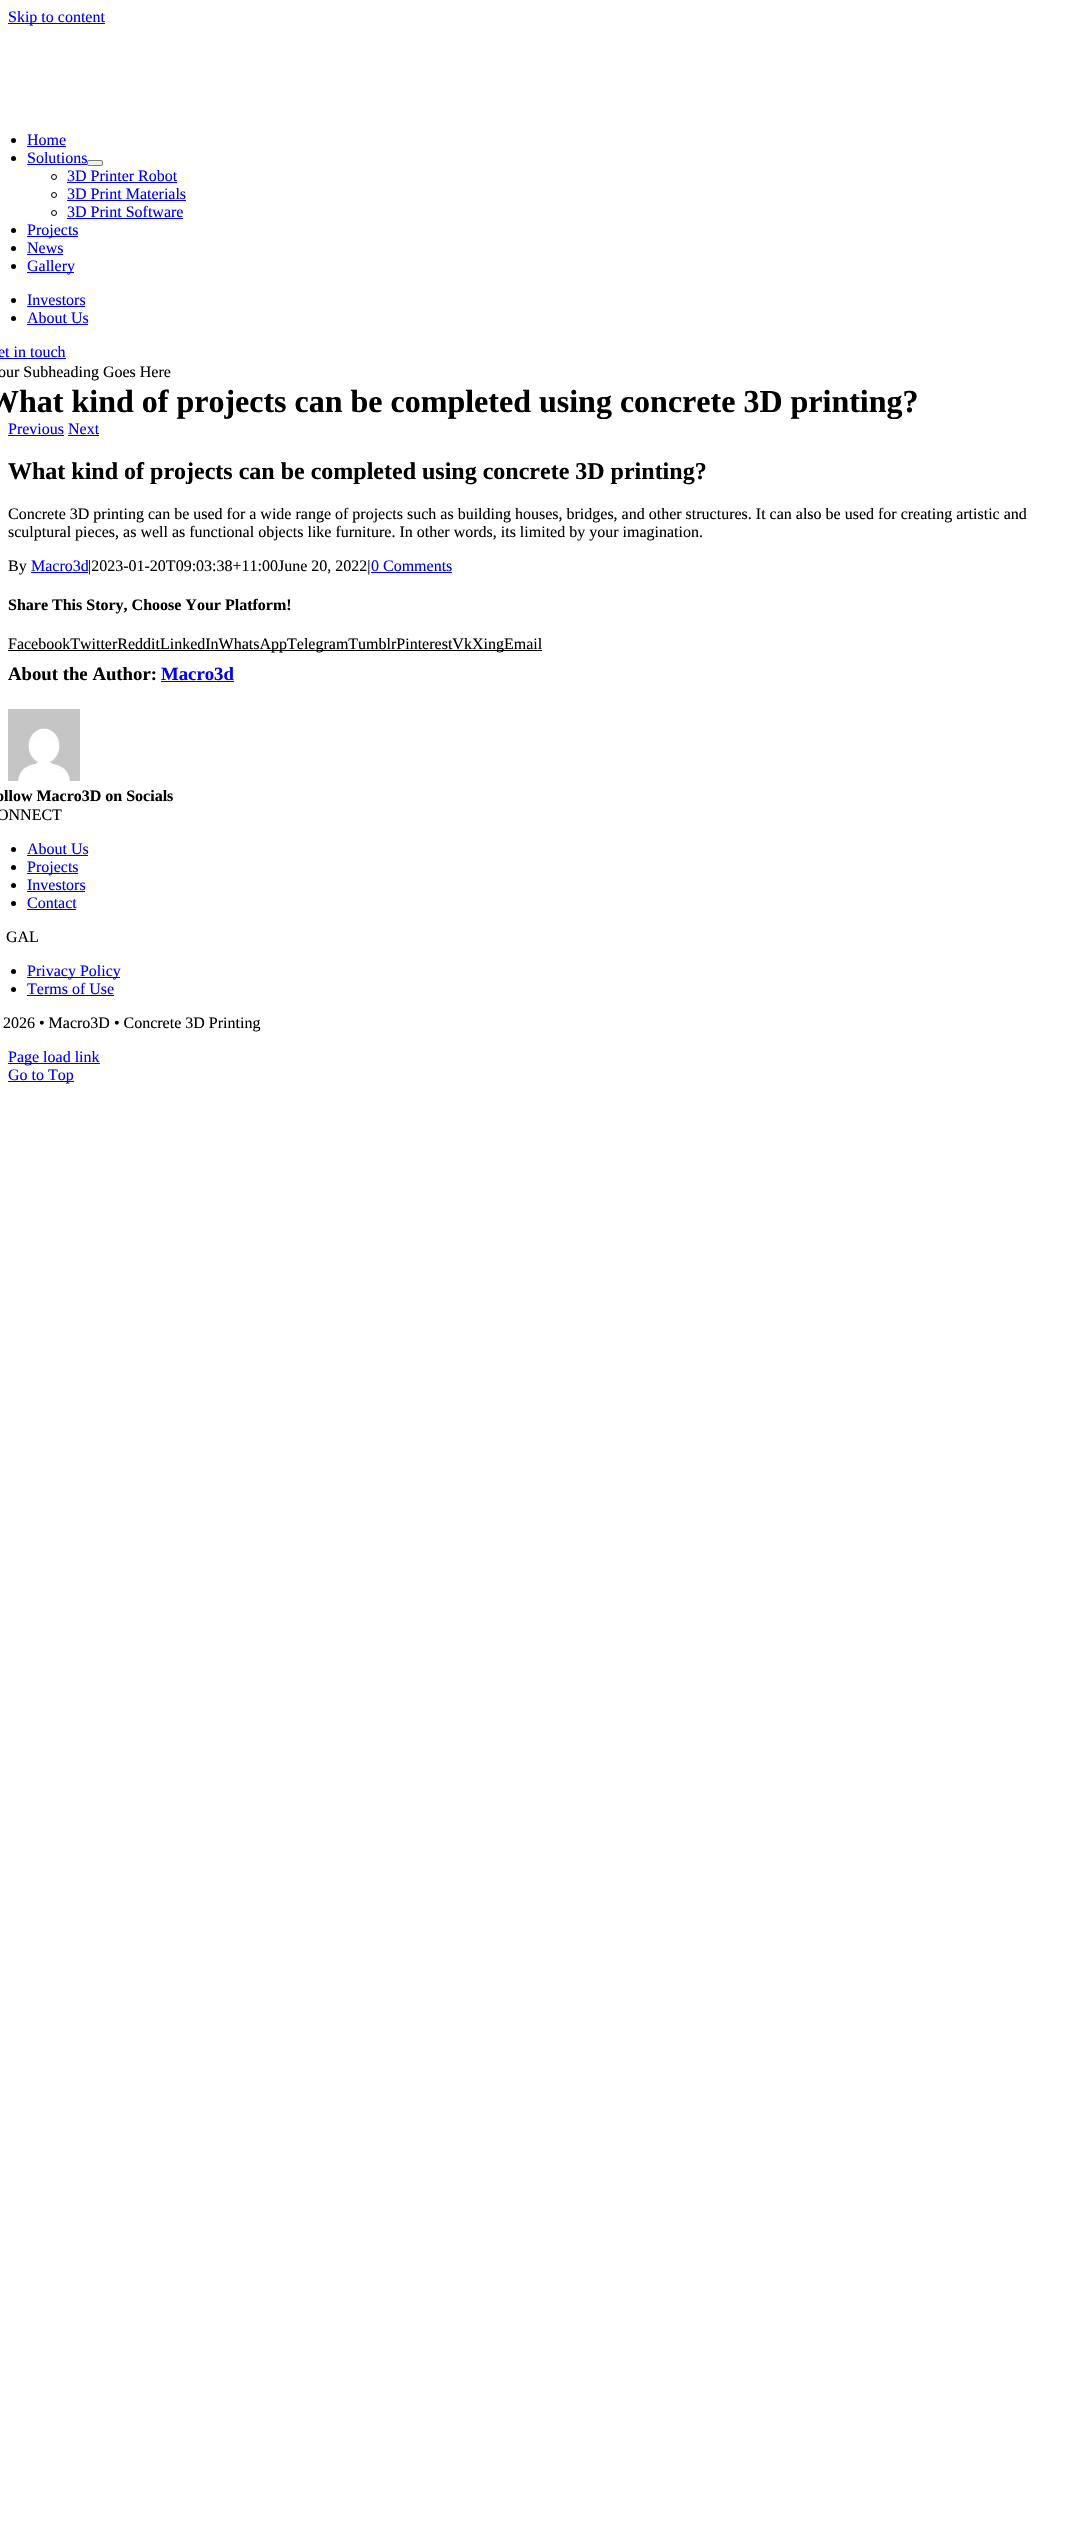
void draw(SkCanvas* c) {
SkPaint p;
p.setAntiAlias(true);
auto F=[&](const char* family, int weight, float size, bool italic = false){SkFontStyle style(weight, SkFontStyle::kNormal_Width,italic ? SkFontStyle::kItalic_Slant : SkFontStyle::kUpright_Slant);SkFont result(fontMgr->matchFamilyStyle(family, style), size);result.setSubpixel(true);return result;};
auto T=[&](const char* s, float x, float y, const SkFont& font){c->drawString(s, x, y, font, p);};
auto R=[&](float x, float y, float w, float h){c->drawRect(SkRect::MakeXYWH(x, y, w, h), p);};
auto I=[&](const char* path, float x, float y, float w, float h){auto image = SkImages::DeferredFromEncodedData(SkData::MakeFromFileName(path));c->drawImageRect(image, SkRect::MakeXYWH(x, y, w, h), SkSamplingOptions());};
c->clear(0xffffffff);
p.setColor(0xff0000ee);
R(8,23,97,1);
auto f1 = F("Liberation Serif",400,16);
T("Skip to content",8,22,f1);
p.setColor(0xff000000);
c->drawCircle(13.5,140.5,2.5,p);
p.setColor(0xff0000ee);
T("Home",27,145,f1);
R(27,146,39,1);
p.setColor(0xff000000);
c->drawCircle(13.5,158.5,2.5,p);
p.setColor(0xff0000ee);
T("Solutions",27,163,f1);
R(27,164,60,1);
p.setColor(0xffefefef);
c->drawRoundRect(SkRect::MakeXYWH(87.5,160.5,15,5),1.5,1.5,p);
p.setStroke(true);
p.setStrokeWidth(1);
p.setColor(0xff767676);
c->drawRoundRect(SkRect::MakeXYWH(87.5,160.5,15,5),1.5,1.5,p);
p.setColor(0xff000000);
c->drawCircle(54,177,2.5,p);
p.setStroke(false);
p.setColor(0xff0000ee);
T("3D Printer Robot",67,181,f1);
R(67,182,110,1);
p.setStroke(true);
p.setColor(0xff000000);
c->drawCircle(54,195,2.5,p);
p.setStroke(false);
p.setColor(0xff0000ee);
T("3D Print Materials",67,199,f1);
R(67,200,119,1);
p.setStroke(true);
p.setColor(0xff000000);
c->drawCircle(54,213,2.5,p);
p.setStroke(false);
p.setColor(0xff0000ee);
T("3D Print Software",67,217,f1);
R(67,218,116,1);
p.setColor(0xff000000);
c->drawCircle(13.5,230.5,2.5,p);
p.setColor(0xff0000ee);
R(27,236,51,1);
T("Projects",27,235,f1);
p.setColor(0xff000000);
c->drawCircle(13.5,248.5,2.5,p);
p.setColor(0xff0000ee);
T("News",27,253,f1);
R(27,254,36,1);
p.setColor(0xff000000);
c->drawCircle(13.5,266.5,2.5,p);
p.setColor(0xff0000ee);
R(27,272,47,1);
T("Gallery",27,271,f1);
p.setColor(0xff000000);
c->drawCircle(13.5,300.5,2.5,p);
p.setColor(0xff0000ee);
T("Investors",27,305,f1);
R(27,306,58,1);
p.setColor(0xff000000);
c->drawCircle(13.5,318.5,2.5,p);
p.setColor(0xff0000ee);
T("About Us",27,323,f1);
R(27,324,61,1);
T("et in touch",-2,357,f1);
R(0,358,66,1);
p.setColor(0xff000000);
T("our Subheading Goes Here",-2,377,f1);
auto f2 = F("Liberation Serif",700,32);
T("What kind of projects can be completed using concrete 3D printing?",-13,412,f2);
p.setColor(0xff0000ee);
T("Previous Next",8,434,f1);
R(8,435,56,1);
R(68,435,31,1);
auto f3 = F("Liberation Serif",700,24);
p.setColor(0xff000000);
T("What kind of projects can be completed using concrete 3D printing?",8,479,f3);
T("Concrete 3D printing can be used for a wide range of projects such as building houses, bridges, and other structures. It can also be used for creating artistic and",8,519,f1);
T("sculptural pieces, as well as functional objects like furniture. In other words, its limited by your imagination.",8,537,f1);
T("By",8,571,f1);
p.setColor(0xff0000ee);
T("Macro3d",31,571,f1);
R(31,572,57,1);
p.setColor(0xff000000);
T("|2023-01-20T09:03:38+11:00June 20, 2022|",88,571,f1);
p.setColor(0xff0000ee);
T("0 Comments",371,571,f1);
R(371,572,81,1);
auto f4 = F("Liberation Serif",700,16);
p.setColor(0xff000000);
T("Share This Story, Choose Your Platform!",8,610,f4);
R(8,650,340,1);
T("FacebookTwitterRedditLinkedInWhatsAppTelegramTumblrPinterestVk",8,649,f1);
R(348,650,194,1);
T("XingEmail",472,649,f1);
auto f5 = F("Liberation Serif",700,18.75);
T("About the Author:",8,680,f5);
p.setColor(0xff0000ee);
T("Macro3d",161,680,f5);
R(161,681,73,1);
I("1.png",8,709,72,72);
p.setColor(0xff000000);
T("ollow Macro3D on Socials",-4,801,f4);
T("ONNECT",-3,820,f1);
c->drawCircle(13.5,849.5,2.5,p);
p.setColor(0xff0000ee);
T("About Us",27,854,f1);
R(27,855,61,1);
p.setColor(0xff000000);
c->drawCircle(13.5,867.5,2.5,p);
p.setColor(0xff0000ee);
R(27,873,51,1);
T("Projects",27,872,f1);
p.setColor(0xff000000);
c->drawCircle(13.5,885.5,2.5,p);
p.setColor(0xff0000ee);
T("Investors",27,890,f1);
R(27,891,58,1);
p.setColor(0xff000000);
c->drawCircle(13.5,903.5,2.5,p);
p.setColor(0xff0000ee);
T("Contact",27,908,f1);
R(27,909,49,1);
p.setColor(0xff000000);
T("GAL",6,942,f1);
c->drawCircle(13.5,971.5,2.5,p);
p.setColor(0xff0000ee);
R(27,977,93,1);
T("Privacy Policy",27,976,f1);
p.setColor(0xff000000);
c->drawCircle(13.5,989.5,2.5,p);
p.setColor(0xff0000ee);
T("Terms of Use",27,994,f1);
R(27,995,87,1);
p.setColor(0xff000000);
T("2026 • Macro3D • Concrete 3D Printing",3,1028,f1);
p.setColor(0xff0000ee);
R(8,1063,92,1);
T("Page load link",8,1062,f1);
R(8,1081,66,1);
T("Go to Top",8,1080,f1);
}
